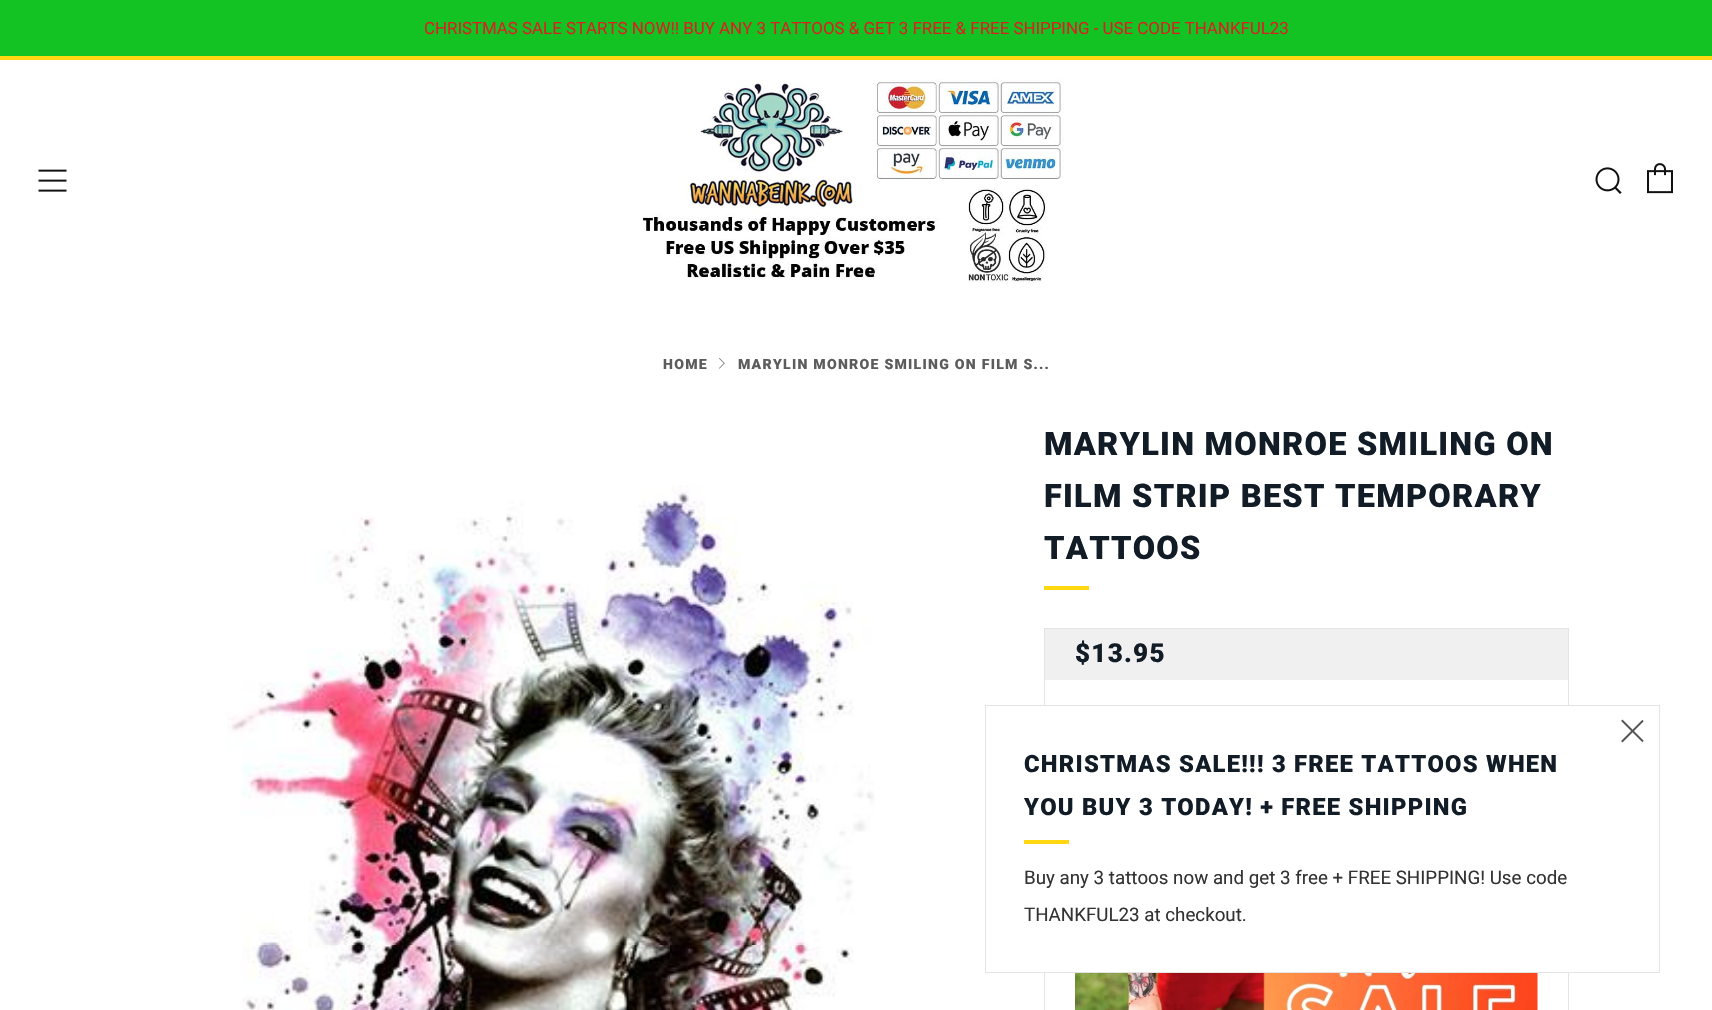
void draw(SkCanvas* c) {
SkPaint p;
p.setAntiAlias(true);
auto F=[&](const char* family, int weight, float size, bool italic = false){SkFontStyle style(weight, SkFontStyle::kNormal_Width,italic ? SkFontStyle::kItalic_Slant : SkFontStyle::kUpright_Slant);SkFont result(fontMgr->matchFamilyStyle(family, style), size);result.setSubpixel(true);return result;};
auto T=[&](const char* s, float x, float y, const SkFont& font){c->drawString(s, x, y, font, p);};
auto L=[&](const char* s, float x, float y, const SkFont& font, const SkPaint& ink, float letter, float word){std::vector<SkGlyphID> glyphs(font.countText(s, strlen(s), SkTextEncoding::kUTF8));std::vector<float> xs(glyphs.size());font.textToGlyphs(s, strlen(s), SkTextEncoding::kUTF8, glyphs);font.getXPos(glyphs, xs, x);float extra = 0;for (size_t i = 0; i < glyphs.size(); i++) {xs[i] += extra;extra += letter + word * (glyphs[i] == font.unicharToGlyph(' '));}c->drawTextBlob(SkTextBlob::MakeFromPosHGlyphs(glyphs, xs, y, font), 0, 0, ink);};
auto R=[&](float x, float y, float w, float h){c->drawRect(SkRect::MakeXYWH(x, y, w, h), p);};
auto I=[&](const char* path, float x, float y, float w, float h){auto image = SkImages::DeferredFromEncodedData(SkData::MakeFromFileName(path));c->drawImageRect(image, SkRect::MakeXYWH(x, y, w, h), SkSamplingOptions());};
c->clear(0xffffffff);
p.setColor(0xff12c323);
R(0,0,1712,56);
auto f1 = F("Roboto",400,16.88);
p.setColor(0xffd82121);
T("CHRISTMAS SALE STARTS NOW!! BUY ANY 3 TATTOOS & GET 3 FREE & FREE SHIPPING - USE CODE THANKFUL23",424,34,f1);
p.setColor(0xffffd811);
R(0,56,1712,4);
I("1.png",38,169,29,23);
I("2.png",641,79,423,204);
I("3.png",1595,167,27,27);
I("4.png",1647,163,26,31);
auto f2 = F("Roboto",900,14.1);
p.setColor(0xff5c5c5c);
L("HOME",663,369,f2,p,1.25,0);
I("5.png",719,358,6,11);
L("MARYLIN MONROE SMILING ON FILM S...",738,369,f2,p,1.25,0);
I("6.png",227,485,648,525);
auto f3 = F("Roboto",900,32.5);
p.setColor(0xff121c26);
L("MARYLIN MONROE SMILING ON",1044,455,f3,p,1.25,0);
L("FILM STRIP BEST TEMPORARY",1044,507,f3,p,1.25,0);
L("TATTOOS",1044,559,f3,p,1.25,0);
p.setColor(0xffffd811);
R(1044,586,45,4);
p.setStroke(true);
p.setStrokeWidth(1);
p.setColor(0xffe4e4e4);
c->drawRect(SkRect::MakeXYWH(1044.5,628.5,524,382),p);
p.setStroke(false);
p.setColor(0xfff0f0f0);
R(1045,629,523,51);
auto f4 = F("Roboto",900,26);
p.setColor(0xff121c26);
L("$13.95",1075,662,f4,p,1.25,0);
I("7.png",1075,973,463,37);
p.setColor(0xffffffff);
R(1044,706,525,266);
p.setStroke(true);
p.setColor(0xffe4e4e4);
c->drawRect(SkRect::MakeXYWH(985.5,705.5,674,267),p);
I("8.png",1621,719,23,24);
auto f5 = F("Roboto",900,23.75);
p.setStroke(false);
p.setColor(0xff121c26);
L("CHRISTMAS SALE!!! 3 FREE TATTOOS WHEN",1024,772,f5,p,1.25,0);
L("YOU BUY 3 TODAY! + FREE SHIPPING",1024,815,f5,p,1.25,0);
p.setColor(0xffffd811);
R(1024,840,45,4);
auto f6 = F("Roboto",400,18.75);
p.setColor(0xff333333);
T("Buy any 3 tattoos now and get 3 free + FREE SHIPPING! Use code",1024,884,f6);
T("THANKFUL23 at checkout.",1024,921,f6);
}
